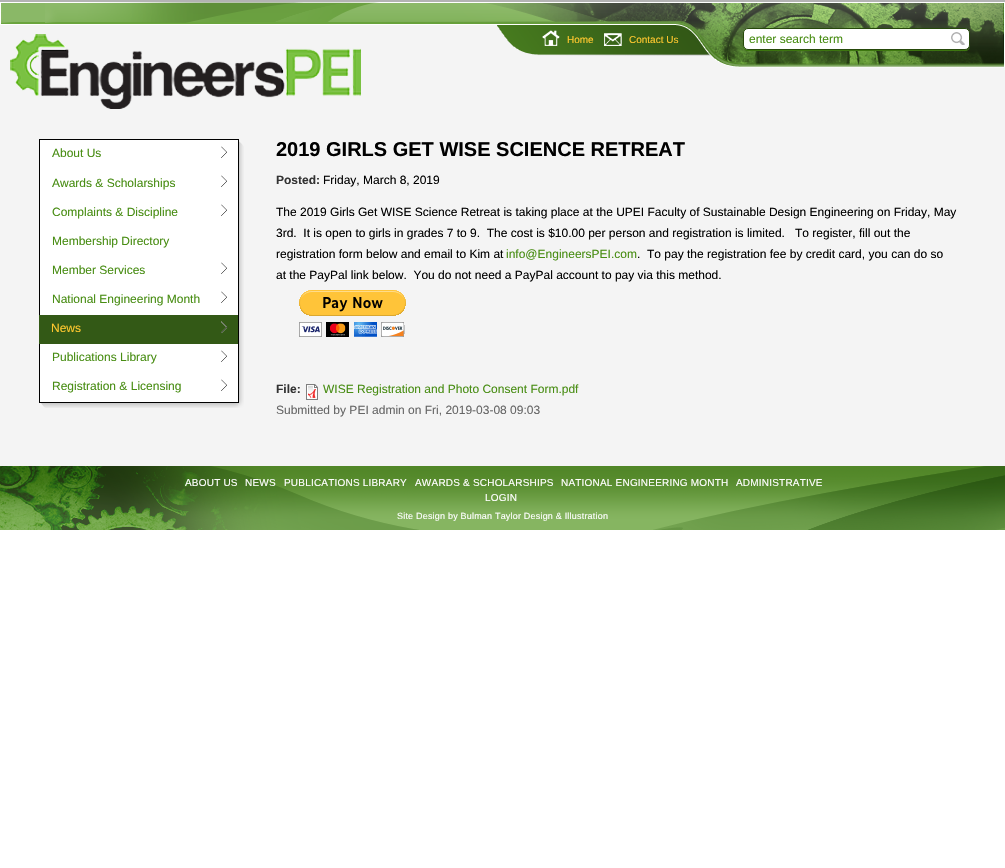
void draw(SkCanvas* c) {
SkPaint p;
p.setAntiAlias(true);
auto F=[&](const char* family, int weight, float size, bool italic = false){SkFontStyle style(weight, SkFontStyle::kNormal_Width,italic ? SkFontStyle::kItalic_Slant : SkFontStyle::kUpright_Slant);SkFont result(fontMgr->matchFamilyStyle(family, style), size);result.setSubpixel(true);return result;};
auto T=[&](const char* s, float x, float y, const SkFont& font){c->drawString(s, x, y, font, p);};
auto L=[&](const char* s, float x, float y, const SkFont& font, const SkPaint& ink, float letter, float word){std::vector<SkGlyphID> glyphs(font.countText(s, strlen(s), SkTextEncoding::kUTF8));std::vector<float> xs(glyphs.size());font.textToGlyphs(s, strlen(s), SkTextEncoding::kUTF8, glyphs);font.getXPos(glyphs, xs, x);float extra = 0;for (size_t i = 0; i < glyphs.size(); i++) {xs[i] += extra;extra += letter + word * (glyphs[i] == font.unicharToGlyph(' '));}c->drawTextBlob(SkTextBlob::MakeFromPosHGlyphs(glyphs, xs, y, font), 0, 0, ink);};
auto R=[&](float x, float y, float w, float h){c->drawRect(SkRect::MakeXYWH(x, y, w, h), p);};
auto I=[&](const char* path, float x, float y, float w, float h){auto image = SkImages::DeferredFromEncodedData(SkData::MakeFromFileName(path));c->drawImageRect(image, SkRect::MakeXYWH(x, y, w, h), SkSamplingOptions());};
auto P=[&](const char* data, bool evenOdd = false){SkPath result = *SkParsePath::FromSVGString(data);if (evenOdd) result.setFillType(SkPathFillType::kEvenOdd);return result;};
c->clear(0xffffffff);
p.setColor(0xfff4f4f4);
R(0,25,1005,441);
p.setColor(0xffb3b3b3);
R(0,0,1005,2);
I("1.png",0,2,45,23);
I("2.png",45,2,960,66);
I("3.png",10,34,351,75);
I("4.png",542,30,18,16);
auto f1 = F("Liberation Sans",400,10);
p.setColor(0xffffc82e);
T("Home",567,43,f1);
I("5.png",604,33,18,13);
T("Contact Us",629,43,f1);
p.setColor(0xff3d7610);
c->drawPath(P("M743 45v1c0 3 2 5 5 5h217c3 0 5-2 5-5v-1c0 3-2 5-5 5h-217c-3 0-5-2-5-5z"),p);
p.setColor(0xffffffff);
c->drawRoundRect(SkRect::MakeXYWH(743.5,28.5,226,21),4.5,4.5,p);
p.setStroke(true);
p.setStrokeWidth(1);
p.setColor(0xff26490a);
c->drawRoundRect(SkRect::MakeXYWH(743.5,28.5,226,21),4.5,4.5,p);
auto f2 = F("Liberation Sans",400,12);
p.setStroke(false);
p.setColor(0xff488d13);
T("enter search term",749,43,f2);
I("6.png",951,32,14,13);
I("7.png",41,141,203,267);
p.setColor(0xffffffff);
R(40,140,198,175);
p.setColor(0xff000000);
R(39,139,200,1);
R(238,140,1,262);
R(39,140,1,175);
p.setColor(0xff488d13);
T("About Us",52,157,f2);
I("8.png",221,146,6,12);
T("Awards & Scholarships",52,187,f2);
I("8.png",221,175,6,12);
T("Complaints & Discipline",52,216,f2);
I("8.png",221,204,6,12);
T("Membership Directory",52,245,f2);
T("Member Services",52,274,f2);
I("8.png",221,262,6,12);
T("National Engineering Month",52,303,f2);
I("8.png",221,291,6,12);
p.setColor(0xff335916);
R(39,315,199,29);
p.setColor(0xffffc82e);
T("News",51,332,f2);
I("9.png",221,321,7,12);
p.setColor(0xffffffff);
R(40,344,198,58);
p.setColor(0xff000000);
R(39,344,1,58);
p.setColor(0xff488d13);
T("Publications Library",52,361,f2);
I("8.png",221,350,6,12);
p.setColor(0xff000000);
R(39,402,200,1);
p.setColor(0xff488d13);
T("Registration & Licensing",52,390,f2);
I("8.png",221,379,6,12);
auto f3 = F("Liberation Sans",700,20);
p.setColor(0xff000000);
T("2019 GIRLS GET WISE SCIENCE RETREAT",276,156,f3);
auto f4 = F("Liberation Sans",700,12);
p.setColor(0xff333333);
T("Posted:",276,184,f4);
p.setColor(0xff000000);
T("Friday, March 8, 2019",323,184,f2);
T("The 2019 Girls Get WISE Science Retreat is taking place at the UPEI Faculty of Sustainable Design Engineering on Friday, May",276,216,f2);
T("3rd.  It is open to girls in grades 7 to 9.  The cost is $10.00 per person and registration is limited.",276,237,f2);
T("To register, fill out the",795,237,f2);
T("registration form below and email to Kim at",276,258,f2);
p.setColor(0xff488d13);
T("info@EngineersPEI.com",506,258,f2);
p.setColor(0xff000000);
T(".  To pay the registration fee by credit card, you can do so",637,258,f2);
T("at the PayPal link below.  You do not need a PayPal account to pay via this method.",276,279,f2);
I("10.png",299,290,107,47);
p.setColor(0xff333333);
T("File:",276,393,f4);
I("11.png",306,384,12,16);
p.setColor(0xff488d13);
T("WISE Registration and Photo Consent Form.pdf",323,393,f2);
p.setColor(0xff666666);
T("Submitted by PEI admin on Fri, 2019-03-08 09:03",276,414,f2);
I("12.png",419,466,234,64);
I("13.png",0,466,419,64);
I("14.png",653,466,352,64);
p.setColor(0xffffffff);
L("ABOUT US",185,486,f1,p,.2,0);
L("NEWS",245,486,f1,p,.2,0);
L("PUBLICATIONS LIBRARY",284,486,f1,p,.2,0);
L("AWARDS & SCHOLARSHIPS",415,486,f1,p,.2,0);
L("NATIONAL ENGINEERING MONTH",561,486,f1,p,.2,0);
L("ADMINISTRATIVE",736,486,f1,p,.2,0);
L("LOGIN",485,501,f1,p,.2,0);
auto f5 = F("Liberation Sans",400,9);
L("Site Design by Bulman Taylor Design & Illustration",397,519,f5,p,.2,0);
}
